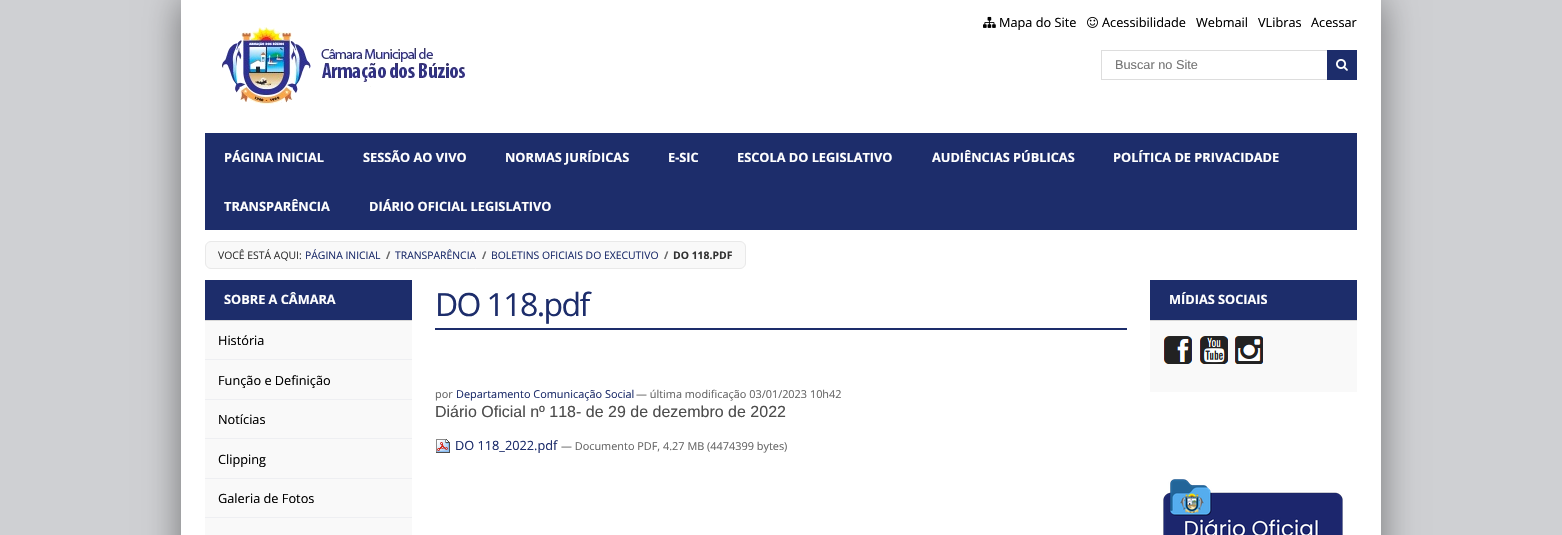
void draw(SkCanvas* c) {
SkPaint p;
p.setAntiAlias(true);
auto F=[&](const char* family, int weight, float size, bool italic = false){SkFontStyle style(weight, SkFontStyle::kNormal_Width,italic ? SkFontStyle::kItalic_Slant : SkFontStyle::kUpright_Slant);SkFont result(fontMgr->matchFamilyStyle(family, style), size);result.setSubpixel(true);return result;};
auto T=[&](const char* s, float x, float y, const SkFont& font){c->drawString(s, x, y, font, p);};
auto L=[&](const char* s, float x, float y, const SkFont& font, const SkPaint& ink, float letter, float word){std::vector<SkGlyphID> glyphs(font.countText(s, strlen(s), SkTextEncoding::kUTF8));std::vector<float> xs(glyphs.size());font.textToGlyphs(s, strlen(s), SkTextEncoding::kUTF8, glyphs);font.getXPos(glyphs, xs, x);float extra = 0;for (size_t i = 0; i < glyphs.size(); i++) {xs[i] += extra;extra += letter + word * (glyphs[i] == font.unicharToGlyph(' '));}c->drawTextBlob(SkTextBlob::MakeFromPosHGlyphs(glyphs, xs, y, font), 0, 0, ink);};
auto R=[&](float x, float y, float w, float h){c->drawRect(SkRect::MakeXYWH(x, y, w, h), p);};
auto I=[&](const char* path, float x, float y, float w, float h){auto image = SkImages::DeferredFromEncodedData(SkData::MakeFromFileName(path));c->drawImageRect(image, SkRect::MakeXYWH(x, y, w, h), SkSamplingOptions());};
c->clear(0xffcfd0d3);
p.setColor(0x73000000);
p.setMaskFilter(SkMaskFilter::MakeBlur(kNormal_SkBlurStyle, 17.5));
c->drawRect(SkRect::MakeXYWH(181,0,1200,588),p);
p.setMaskFilter(nullptr);
p.setColor(0xffffffff);
R(181,0,1200,535);
I("1.png",983,16,13,12);
auto f1 = F("Open Sans",400,12.75);
p.setColor(0xff000000);
T("Mapa do Site",999,27,f1);
I("2.png",1087,16,11,12);
T("Acessibilidade",1102,27,f1);
T("Webmail",1196,27,f1);
T("VLibras",1258,27,f1);
T("Acessar",1311,27,f1);
I("3.png",222,27,243,77);
p.setStroke(true);
p.setStrokeWidth(1);
p.setColor(0xffdddddd);
c->drawRect(SkRect::MakeXYWH(1101.5,50.5,255,29),p);
auto f2 = F("Liberation Sans",400,12.75);
p.setStroke(false);
p.setColor(0xff757575);
T("Buscar no Site",1115,69,f2);
p.setColor(0xff1d2d6b);
R(1327,50,30,30);
I("4.png",1336,59,12,12);
R(205,133,1152,97);
auto f3 = F("Open Sans",700,12.75);
p.setColor(0xffffffff);
T("PÁGINA INICIAL",224,162,f3);
T("SESSÃO AO VIVO",363,162,f3);
T("NORMAS JURÍDICAS",505,162,f3);
T("E-SIC",668,162,f3);
T("ESCOLA DO LEGISLATIVO",737,162,f3);
T("AUDIÊNCIAS PÚBLICAS",932,162,f3);
T("POLÍTICA DE PRIVACIDADE",1113,162,f3);
T("TRANSPARÊNCIA",224,211,f3);
T("DIÁRIO OFICIAL LEGISLATIVO",369,211,f3);
p.setColor(0xfff9f9f9);
c->drawRoundRect(SkRect::MakeXYWH(205.5,241.5,540,27),5.5,5.5,p);
p.setStroke(true);
p.setColor(0xffe9e9e9);
c->drawRoundRect(SkRect::MakeXYWH(205.5,241.5,540,27),5.5,5.5,p);
auto f4 = F("Open Sans",400,10.4);
p.setStroke(false);
p.setColor(0xff333333);
T("VOCÊ ESTÁ AQUI:",218,259,f4);
p.setColor(0xff1d2d6b);
T("PÁGINA INICIAL",305,259,f4);
auto f5 = F("Open Sans",700,10.4);
p.setColor(0xff666666);
T("/",386,259,f5);
p.setColor(0xff1d2d6b);
T("TRANSPARÊNCIA",395,259,f4);
p.setColor(0xff666666);
T("/",482,259,f5);
p.setColor(0xff1d2d6b);
T("BOLETINS OFICIAIS DO EXECUTIVO",491,259,f4);
p.setColor(0xff666666);
T("/",664,259,f5);
p.setColor(0xff333333);
T("DO 118.PDF",673,259,f5);
p.setColor(0xfff9f9f9);
R(205,321,207,214);
p.setColor(0xff1d2d6b);
R(205,280,207,40);
p.setColor(0xffd8d8d8);
R(205,320,207,1);
p.setColor(0xffffffff);
T("SOBRE A CÂMARA",224,304,f3);
p.setColor(0xffeeeff2);
R(205,359,207,1);
p.setColor(0xff000000);
T("História",218,345,f1);
p.setColor(0xffeeeff2);
R(205,399,207,1);
p.setColor(0xff000000);
T("Função e Definição",218,385,f1);
p.setColor(0xffeeeff2);
R(205,438,207,1);
p.setColor(0xff000000);
T("Notícias",218,424,f1);
p.setColor(0xffeeeff2);
R(205,478,207,1);
p.setColor(0xff000000);
T("Clipping",218,464,f1);
p.setColor(0xffeeeff2);
R(205,517,207,1);
p.setColor(0xff000000);
T("Galeria de Fotos",218,503,f1);
p.setColor(0xff1d2d6b);
R(435,328,692,2);
auto f6 = F("Open Sans",400,32);
L("DO 118.pdf",435,316,f6,p,-1.6,0);
auto f7 = F("Open Sans",400,10.9);
p.setColor(0xff666666);
T("por",435,398,f7);
p.setColor(0xff1d2d6b);
T("Departamento Comunicação Social",456,398,f7);
p.setColor(0xff666666);
T("— última modificação 03/01/2023 10h42",636,398,f7);
auto f8 = F("Liberation Sans",400,16);
p.setColor(0xff4d4d4d);
T("Diário Oficial nº 118- de 29 de dezembro de 2022",435,417,f8);
I("5.png",436,439,14,14);
p.setColor(0xff1d2d6b);
T("DO 118_2022.pdf",455,450,f1);
p.setColor(0xff666666);
T("— Documento PDF, 4.27 MB (4474399 bytes)",561,450,f7);
p.setColor(0xfff9f9f9);
R(1150,321,207,71);
p.setColor(0xff1d2d6b);
R(1150,280,207,40);
p.setColor(0xffd8d8d8);
R(1150,320,207,1);
p.setColor(0xffffffff);
T("MÍDIAS SOCIAIS",1169,304,f3);
I("6.png",1164,336,28,28);
I("7.png",1200,336,28,28);
I("8.png",1235,336,28,28);
I("9.png",1163,479,180,56);
}
